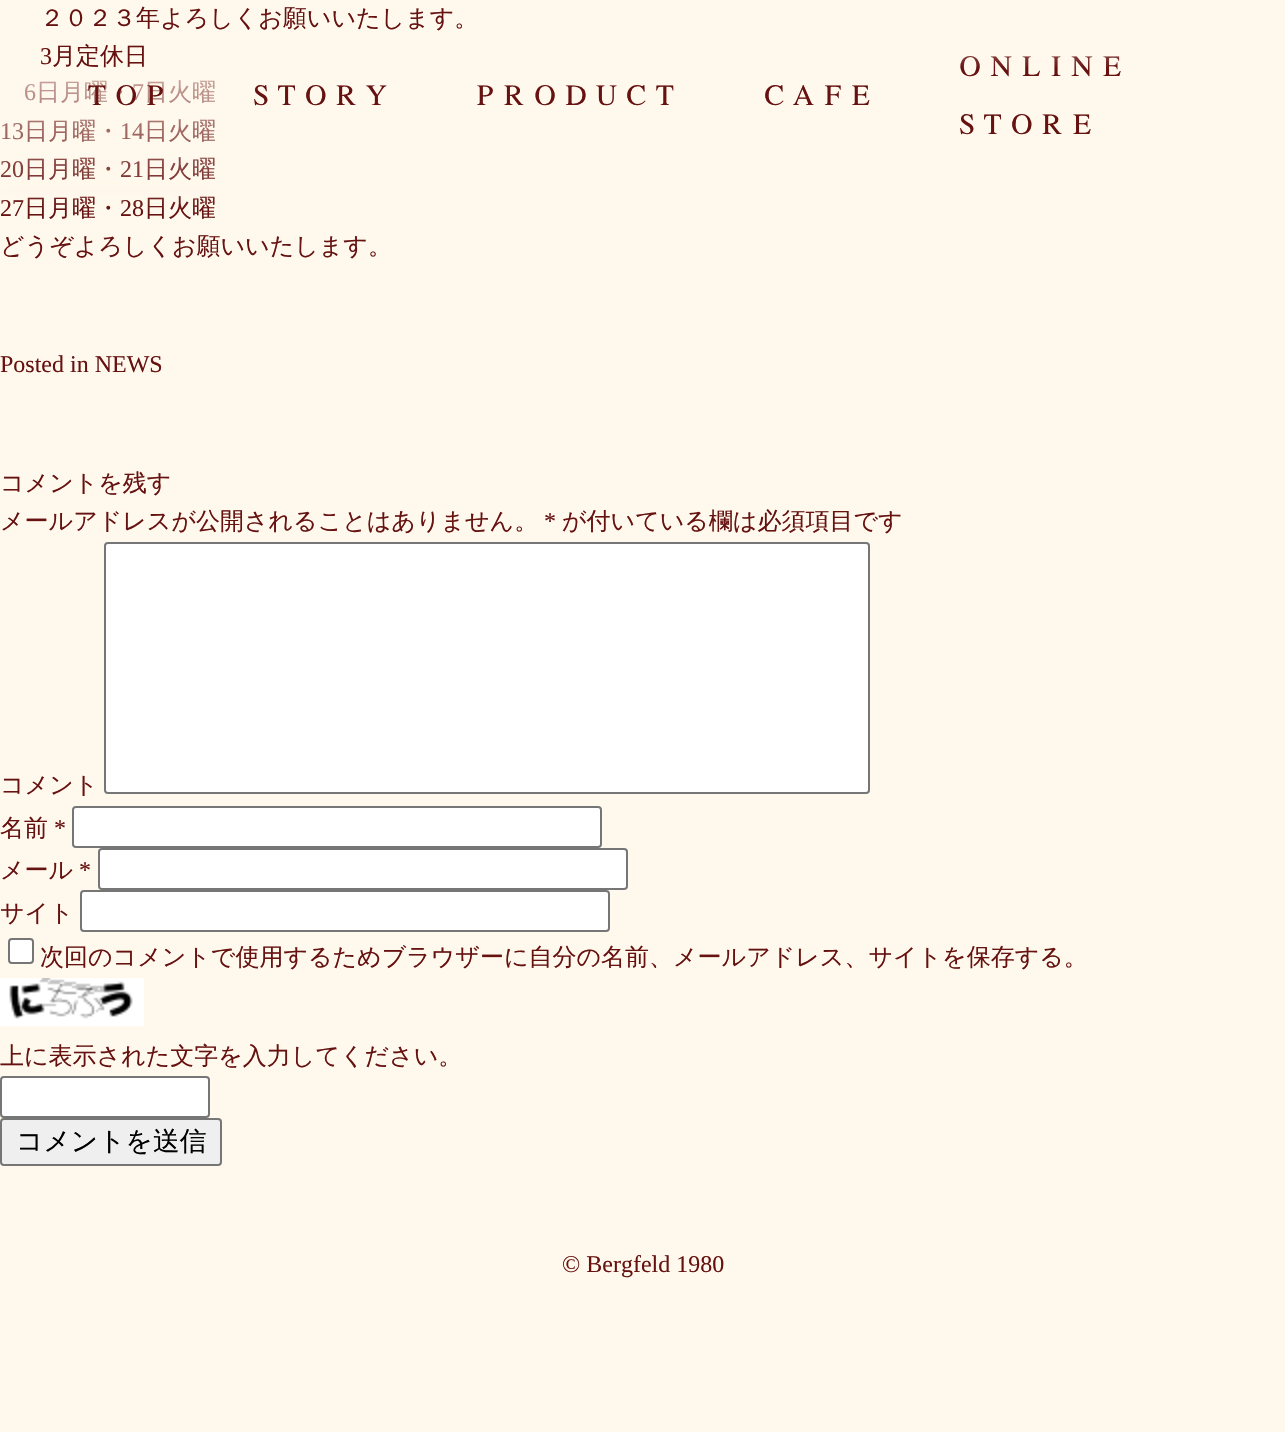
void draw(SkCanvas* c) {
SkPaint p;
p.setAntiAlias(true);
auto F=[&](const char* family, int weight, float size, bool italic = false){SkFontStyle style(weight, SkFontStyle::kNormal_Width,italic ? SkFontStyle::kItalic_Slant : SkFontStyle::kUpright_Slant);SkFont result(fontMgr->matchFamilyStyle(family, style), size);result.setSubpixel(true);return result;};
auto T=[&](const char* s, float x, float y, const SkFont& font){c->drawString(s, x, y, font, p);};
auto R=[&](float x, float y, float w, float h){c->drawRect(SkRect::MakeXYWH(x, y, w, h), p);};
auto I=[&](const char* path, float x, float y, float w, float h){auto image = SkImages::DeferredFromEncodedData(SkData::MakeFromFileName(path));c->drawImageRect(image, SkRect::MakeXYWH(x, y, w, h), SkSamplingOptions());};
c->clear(0xfffff8ec);
auto f1 = F("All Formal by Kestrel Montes",400,36);
p.setColor(0xff661211);
T("ONLINE",955,76,f1);
{
const SkColor colors[] = {0xfffff8ec,0x00fff8ec,0x00fff8ec};
const float stops[] = {0,.9,1};
const SkPoint ends[] = {{643,0}, {643,76}};
p.setShader(SkGradientShader::MakeLinear(ends, colors, stops, 3, SkTileMode::kClamp));
p.setAlpha(255);
}
R(960,56,159,11);
auto f2 = F("WenQuanYi Zen Hei",500,24);
p.setShader(nullptr);
p.setColor(0xff661211);
T("２０２３年よろしくお願いいたします。",40,26,f2);
auto f3 = F("Liberation Serif",400,24);
T("3",40,64,f3);
T("月定休日",52,64,f2);
T("6",24,100,f3);
T("日月曜・",36,100,f2);
T("7",132,100,f3);
T("日火曜",144,100,f2);
T("13",0,139,f3);
T("日月曜・",24,139,f2);
T("14",120,139,f3);
T("日火曜",144,139,f2);
T("20",0,177,f3);
T("日月曜・",24,177,f2);
T("21",120,177,f3);
T("日火曜",144,177,f2);
T("27",0,216,f3);
T("日月曜・",24,216,f2);
T("28",120,216,f3);
T("日火曜",144,216,f2);
T("どうぞよろしくお願いいたします。",0,254,f2);
T("Posted in NEWS",0,372,f3);
T("コメントを残す",0,491,f2);
T("メールアドレスが公開されることはありません。",0,529,f2);
T("*",544,529,f3);
T("が付いている欄は必須項目です",562,529,f2);
T("コメント",0,793,f2);
p.setColor(0xffffffff);
c->drawRoundRect(SkRect::MakeXYWH(105,543,764,250),3,3,p);
p.setStroke(true);
p.setStrokeWidth(2);
p.setColor(0xff767676);
c->drawRoundRect(SkRect::MakeXYWH(105,543,764,250),3,3,p);
p.setStroke(false);
p.setColor(0xff661211);
T("名前",0,836,f2);
T("*",54,836,f3);
p.setColor(0xffffffff);
c->drawRoundRect(SkRect::MakeXYWH(73,807,528,40),3,3,p);
p.setStroke(true);
p.setColor(0xff767676);
c->drawRoundRect(SkRect::MakeXYWH(73,807,528,40),3,3,p);
p.setStroke(false);
p.setColor(0xff661211);
T("メール",0,878,f2);
T("*",79,878,f3);
p.setColor(0xffffffff);
c->drawRoundRect(SkRect::MakeXYWH(99,849,528,40),3,3,p);
p.setStroke(true);
p.setColor(0xff767676);
c->drawRoundRect(SkRect::MakeXYWH(99,849,528,40),3,3,p);
p.setStroke(false);
p.setColor(0xff661211);
T("サイト",0,921,f2);
p.setColor(0xffffffff);
c->drawRoundRect(SkRect::MakeXYWH(81,891,528,40),3,3,p);
p.setStroke(true);
p.setColor(0xff767676);
c->drawRoundRect(SkRect::MakeXYWH(81,891,528,40),3,3,p);
p.setStroke(false);
p.setColor(0xffffffff);
c->drawRoundRect(SkRect::MakeXYWH(9,939,24,24),3,3,p);
p.setStroke(true);
p.setColor(0xff767676);
c->drawRoundRect(SkRect::MakeXYWH(9,939,24,24),3,3,p);
p.setStroke(false);
p.setColor(0xff661211);
T("次回のコメントで使用するためブラウザーに自分の名前、メールアドレス、サイトを保存する。",40,965,f2);
I("1.png",0,978,144,48);
T("上に表示された文字を入力してください。",0,1064,f2);
p.setColor(0xffffffff);
c->drawRoundRect(SkRect::MakeXYWH(1,1077,208,40),3,3,p);
p.setStroke(true);
p.setColor(0xff767676);
c->drawRoundRect(SkRect::MakeXYWH(1,1077,208,40),3,3,p);
p.setStroke(false);
p.setColor(0xffefefef);
c->drawRoundRect(SkRect::MakeXYWH(1,1119,220,46),3,3,p);
p.setStroke(true);
p.setColor(0xff767676);
c->drawRoundRect(SkRect::MakeXYWH(1,1119,220,46),3,3,p);
auto f4 = F("WenQuanYi Zen Hei",500,26.75);
p.setStroke(false);
p.setColor(0xff000000);
T("コメントを送信",16,1150,f4);
{
const SkColor colors[] = {0xfffff8ec,0x00fff8ec,0x00fff8ec};
const float stops[] = {0,.9,1};
const SkPoint ends[] = {{643,0}, {643,236}};
p.setShader(SkGradientShader::MakeLinear(ends, colors, stops, 3, SkTileMode::kClamp));
p.setAlpha(255);
}
R(1,80,214,128);
p.setShader(nullptr);
p.setColor(0xff661211);
T("TOP",84,105,f1);
T("STORY",249,105,f1);
T("PRODUCT",472,105,f1);
T("CAFE",760,105,f1);
T("STORE",955,134,f1);
T("© Bergfeld 1980",562,1272,f3);
}
